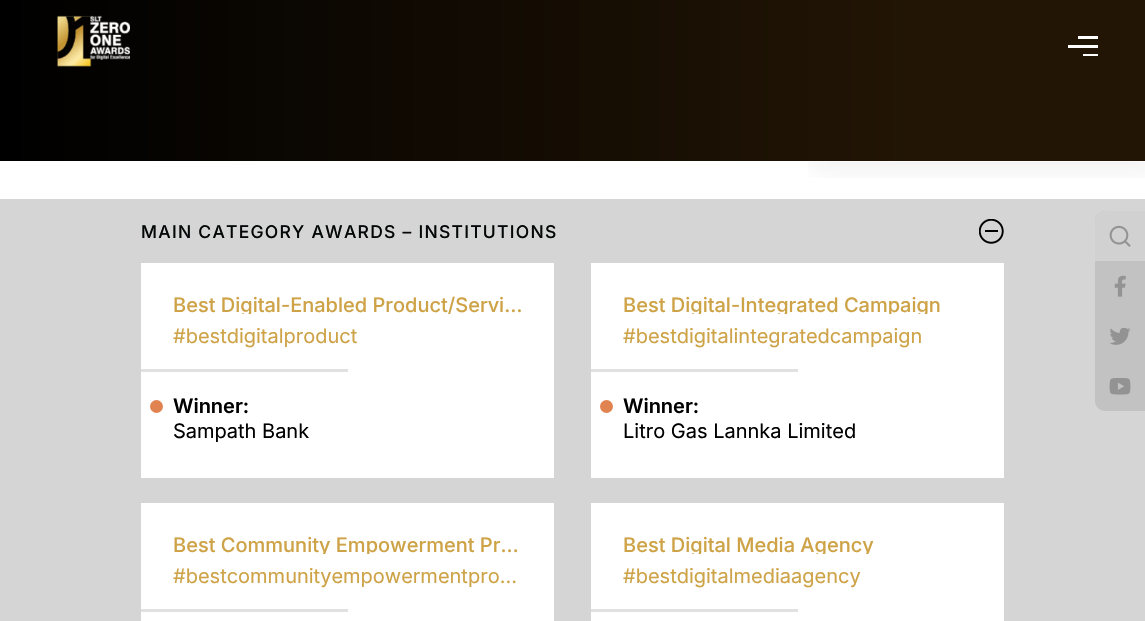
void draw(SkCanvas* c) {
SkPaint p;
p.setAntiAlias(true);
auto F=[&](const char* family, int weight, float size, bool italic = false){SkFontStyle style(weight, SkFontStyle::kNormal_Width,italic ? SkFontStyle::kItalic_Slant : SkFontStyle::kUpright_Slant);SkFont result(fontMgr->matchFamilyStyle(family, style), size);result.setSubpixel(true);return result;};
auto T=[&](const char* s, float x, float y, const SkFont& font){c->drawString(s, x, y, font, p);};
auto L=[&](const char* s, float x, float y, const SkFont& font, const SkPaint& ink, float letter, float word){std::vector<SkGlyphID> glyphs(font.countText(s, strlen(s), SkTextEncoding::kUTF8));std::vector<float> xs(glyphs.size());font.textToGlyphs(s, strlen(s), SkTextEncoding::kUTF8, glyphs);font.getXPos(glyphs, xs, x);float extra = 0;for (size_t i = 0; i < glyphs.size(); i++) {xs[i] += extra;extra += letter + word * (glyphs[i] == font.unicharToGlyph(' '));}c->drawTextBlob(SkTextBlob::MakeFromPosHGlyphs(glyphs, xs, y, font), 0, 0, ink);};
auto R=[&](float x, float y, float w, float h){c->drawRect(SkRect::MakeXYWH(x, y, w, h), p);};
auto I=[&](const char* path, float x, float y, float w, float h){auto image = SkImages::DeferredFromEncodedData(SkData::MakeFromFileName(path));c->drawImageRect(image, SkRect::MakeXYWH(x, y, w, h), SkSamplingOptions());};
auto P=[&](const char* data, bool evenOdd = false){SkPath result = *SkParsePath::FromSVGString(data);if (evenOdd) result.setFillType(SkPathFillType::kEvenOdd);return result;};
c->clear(0xffffffff);
{
const SkColor colors[] = {0xff000000,0xff221505};
const float stops[] = {0,.8};
const SkPoint ends[] = {{0,41}, {1145,41}};
p.setShader(SkGradientShader::MakeLinear(ends, colors, stops, 2, SkTileMode::kClamp));
p.setAlpha(255);
}
R(0,0,1145,83);
I("1.png",57,15,73,52);
p.setShader(nullptr);
p.setColor(0xffffffff);
R(1068,45,30,3);
R(1078,36,20,3);
R(1083,54,15,2);
{
const SkColor colors[] = {0xff000000,0xff221505};
const float stops[] = {0,.8};
const SkPoint ends[] = {{0,-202}, {1145,-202}};
p.setShader(SkGradientShader::MakeLinear(ends, colors, stops, 2, SkTileMode::kClamp));
p.setAlpha(255);
}
R(0,83,1145,78);
I("2.png",808,161,337,17);
p.setShader(nullptr);
p.setColor(0xffd5d5d5);
R(0,199,1145,422);
auto f1 = F("Inter",500,17.5);
p.setColor(0xff040707);
L("MAIN CATEGORY AWARDS – INSTITUTIONS",141,238,f1,p,1.25,0);
I("3.png",979,219,25,25);
p.setColor(0xffffffff);
R(141,263,413,215);
c->save();
c->clipRect(SkRect::MakeXYWH(173,294,350,20));
auto f2 = F("Inter",500,20);
p.setColor(0xffcea347);
T("Best Digital-Enabled Product/Servi…",173,312,f2);
c->restore();
auto f3 = F("Inter",400,20);
T("#bestdigitalproduct",173,343,f3);
p.setColor(0xffe1e1e1);
R(141,369,207,3);
p.setColor(0xffe18350);
c->drawCircle(156.5,406.5,6.5,p);
auto f4 = F("Inter",600,20);
p.setColor(0xff000000);
T("Winner:",173,413,f4);
T("Sampath Bank",173,438,f3);
p.setColor(0xffffffff);
R(591,263,413,215);
c->save();
c->clipRect(SkRect::MakeXYWH(623,294,350,20));
p.setColor(0xffcea347);
T("Best Digital-Integrated Campaign",623,312,f2);
c->restore();
T("#bestdigitalintegratedcampaign",623,343,f3);
p.setColor(0xffe1e1e1);
R(591,369,207,3);
p.setColor(0xffe18350);
c->drawCircle(606.5,406.5,6.5,p);
p.setColor(0xff000000);
T("Winner:",623,413,f4);
T("Litro Gas Lannka Limited",623,438,f3);
p.setColor(0xffffffff);
R(141,503,413,118);
c->save();
c->clipRect(SkRect::MakeXYWH(173,534,350,20));
p.setColor(0xffcea347);
T("Best Community Empowerment Pr…",173,552,f2);
c->restore();
T("#bestcommunityempowermentpro…",173,583,f3);
p.setColor(0xffe1e1e1);
R(141,609,207,3);
p.setColor(0xffffffff);
R(591,503,413,118);
c->save();
c->clipRect(SkRect::MakeXYWH(623,534,350,20));
p.setColor(0xffcea347);
T("Best Digital Media Agency",623,552,f2);
c->restore();
T("#bestdigitalmediaagency",623,583,f3);
p.setColor(0xffe1e1e1);
R(591,609,207,3);
p.setColor(0xffc2c2c2);
c->drawPath(P("M1105 211h40v200h-40c-5.5 0-10-4.5-10-10v-180c0-5.5 4.5-10 10-10z"),p);
p.setColor(0xffd1d1d1);
c->drawPath(P("M1105 211h40v50h-50v-40c0-5.5 4.5-10 10-10z"),p);
I("4.png",1109,225,22,22);
I("5.png",1114,275,12,22);
I("6.png",1110,328,21,17);
I("7.png",1109,378,22,17);
}
